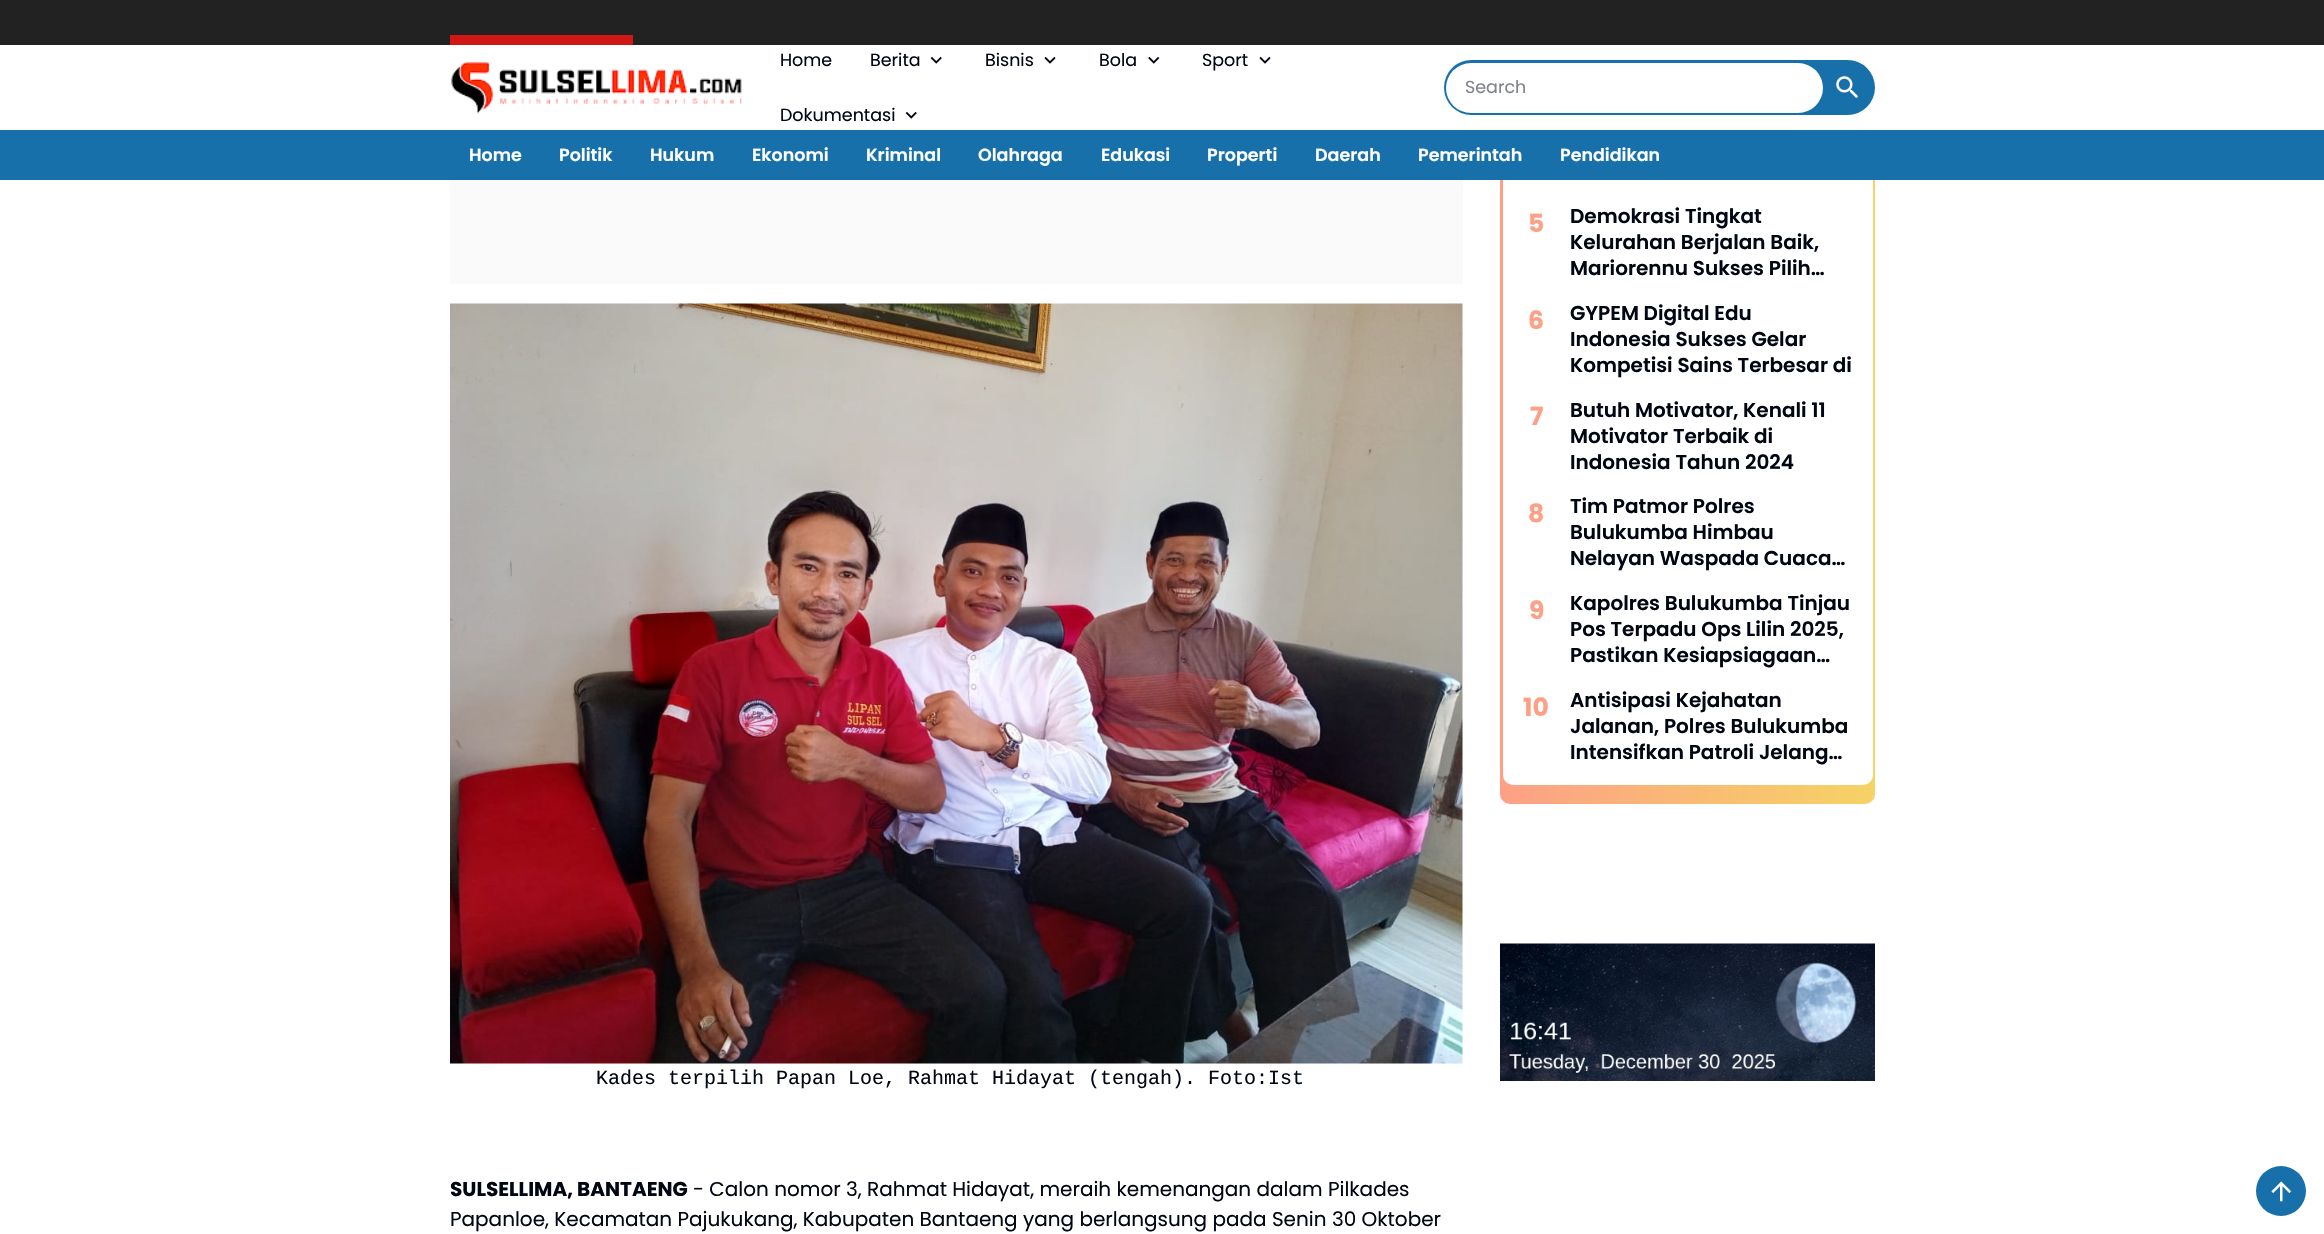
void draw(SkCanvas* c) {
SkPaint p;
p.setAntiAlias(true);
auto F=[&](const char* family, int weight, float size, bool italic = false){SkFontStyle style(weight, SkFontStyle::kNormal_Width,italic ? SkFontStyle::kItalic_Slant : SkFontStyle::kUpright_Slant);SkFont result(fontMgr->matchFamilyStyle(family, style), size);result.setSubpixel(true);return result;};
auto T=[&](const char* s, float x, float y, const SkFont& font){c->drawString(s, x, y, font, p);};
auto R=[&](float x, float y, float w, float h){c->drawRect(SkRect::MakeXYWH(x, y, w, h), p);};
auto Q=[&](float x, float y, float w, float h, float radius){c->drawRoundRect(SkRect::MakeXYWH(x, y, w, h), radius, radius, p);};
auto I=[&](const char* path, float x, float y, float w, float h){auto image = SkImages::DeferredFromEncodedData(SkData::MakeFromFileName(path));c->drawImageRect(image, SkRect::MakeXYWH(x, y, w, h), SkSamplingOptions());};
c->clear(0xffffffff);
{
const SkColor colors[] = {0xfffda085,0xfff6d365};
const float stops[] = {0,1};
const SkPoint ends[] = {{1500,264}, {1875,264}};
p.setShader(SkGradientShader::MakeLinear(ends, colors, stops, 2, SkTileMode::kClamp));
p.setAlpha(255);
}
Q(1500,-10,375,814,10);
p.setShader(nullptr);
p.setColor(0xffffffff);
Q(1503,-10,370,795,10);
p.setColor(0xff222222);
R(0,0,2324,45);
p.setColor(0xffd11616);
R(450,35,183,10);
p.setColor(0xffffffff);
R(1500,45,375,85);
I("1.png",451,62,291,52);
auto f1 = F("Poppins",400,17.5);
p.setColor(0xff010613);
T("Home",780,66,f1);
T("Berita",870,66,f1);
I("2.png",930,56,12,8);
T("Bisnis",985,66,f1);
I("3.png",1044,56,12,8);
T("Bola",1099,66,f1);
I("4.png",1148,56,12,8);
T("Sport",1202,66,f1);
I("3.png",1259,56,12,8);
T("Dokumentasi",780,121,f1);
I("2.png",905,111,12,8);
p.setColor(0xff1870ab);
Q(1444,60,431,55,27.5);
p.setColor(0xffffffff);
Q(1446,63,377,50,25);
p.setColor(0xff808389);
T("Search",1465,93,f1);
I("5.png",1836,76,22,22);
p.setColor(0xff1870ab);
R(0,130,2324,50);
auto f2 = F("Poppins",600,17.5);
p.setColor(0xffffffff);
T("Home",469,161,f2);
T("Politik",559,161,f2);
T("Hukum",650,161,f2);
T("Ekonomi",752,161,f2);
T("Kriminal",866,161,f2);
T("Olahraga",978,161,f2);
T("Edukasi",1101,161,f2);
T("Properti",1207,161,f2);
T("Daerah",1315,161,f2);
T("Pemerintah",1418,161,f2);
T("Pendidikan",1560,161,f2);
auto f3 = F("Poppins",700,25);
p.setColor(0xfffda085);
T("5",1528,232,f3);
auto f4 = F("Poppins",600,20);
p.setColor(0xff010613);
T("Demokrasi Tingkat",1570,223,f4);
T("Kelurahan Berjalan Baik,",1570,249,f4);
T("Mariorennu Sukses Pilih…",1570,275,f4);
p.setColor(0xfffda085);
T("6",1528,329,f3);
p.setColor(0xff010613);
T("GYPEM Digital Edu",1570,320,f4);
T("Indonesia Sukses Gelar",1570,346,f4);
T("Kompetisi Sains Terbesar di",1570,372,f4);
p.setColor(0xfffda085);
T("7",1530,425,f3);
p.setColor(0xff010613);
T("Butuh Motivator, Kenali 11",1570,417,f4);
T("Motivator Terbaik di",1570,443,f4);
T("Indonesia Tahun 2024",1570,469,f4);
p.setColor(0xfffda085);
T("8",1528,522,f3);
p.setColor(0xff010613);
T("Tim Patmor Polres",1570,513,f4);
T("Bulukumba Himbau",1570,539,f4);
T("Nelayan Waspada Cuaca…",1570,565,f4);
p.setColor(0xfffda085);
T("9",1529,619,f3);
p.setColor(0xff010613);
T("Kapolres Bulukumba Tinjau",1570,610,f4);
T("Pos Terpadu Ops Lilin 2025,",1570,636,f4);
T("Pastikan Kesiapsiagaan…",1570,662,f4);
p.setColor(0xfffda085);
T("10",1523,716,f3);
p.setColor(0xff010613);
T("Antisipasi Kejahatan",1570,707,f4);
T("Jalanan, Polres Bulukumba",1570,733,f4);
T("Intensifkan Patroli Jelang…",1570,759,f4);
I("6.png",1500,943,375,138);
p.setColor(0xfffafafa);
R(450,180,1013,104);
I("7.png",450,303,1013,761);
auto f5 = F("Liberation Mono",400,20);
p.setColor(0xff010613);
T("Kades terpilih Papan Loe, Rahmat Hidayat (tengah). Foto:Ist",596,1084,f5);
auto f6 = F("Poppins",700,20);
T("SULSELLIMA, BANTAENG",450,1196,f6);
auto f7 = F("Poppins",400,20);
T("- Calon nomor 3, Rahmat Hidayat, meraih kemenangan dalam Pilkades",693,1196,f7);
T("Papanloe, Kecamatan Pajukukang, Kabupaten Bantaeng yang berlangsung pada Senin 30 Oktober",450,1226,f7);
p.setColor(0xff1870ab);
c->drawCircle(2281,1191,25,p);
I("8.png",2271,1181,21,21);
}
